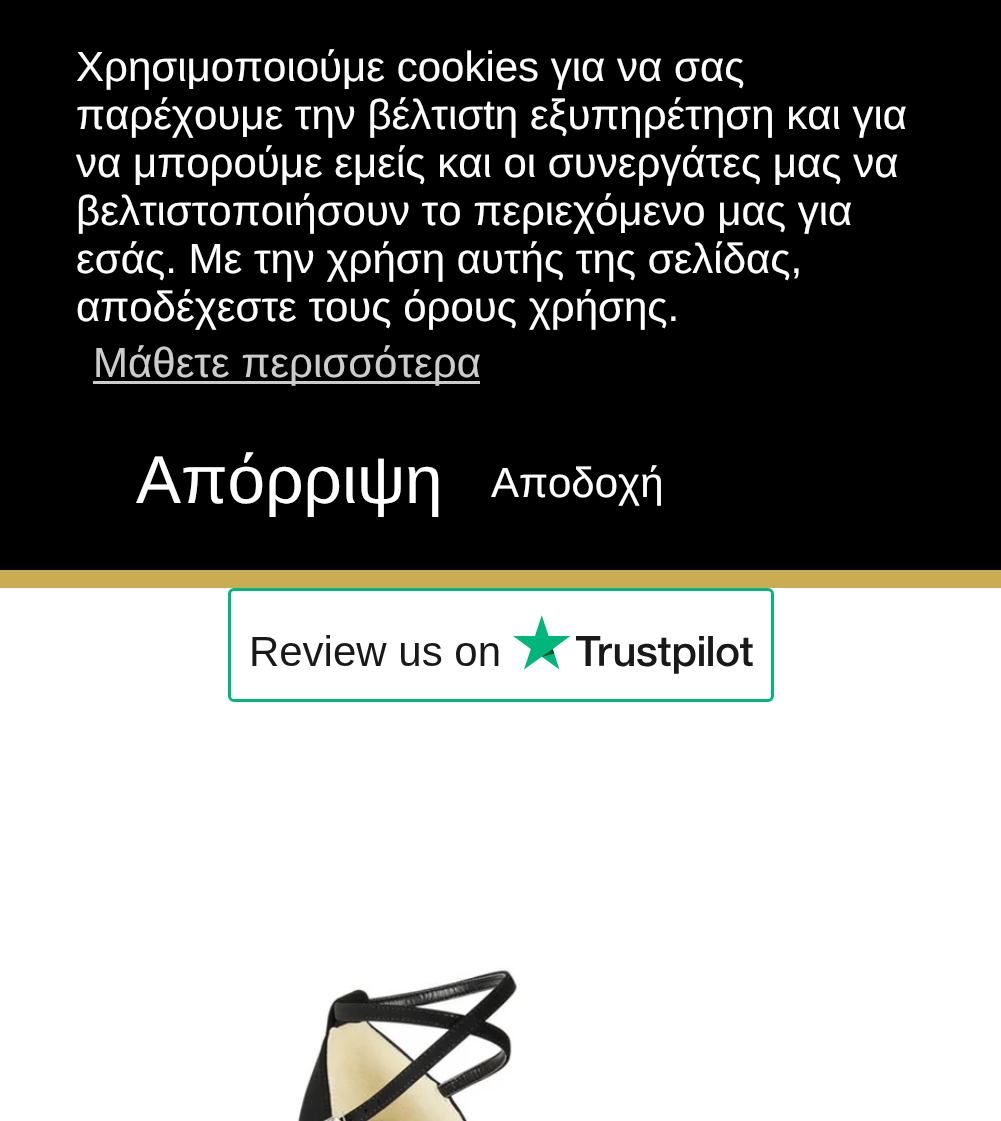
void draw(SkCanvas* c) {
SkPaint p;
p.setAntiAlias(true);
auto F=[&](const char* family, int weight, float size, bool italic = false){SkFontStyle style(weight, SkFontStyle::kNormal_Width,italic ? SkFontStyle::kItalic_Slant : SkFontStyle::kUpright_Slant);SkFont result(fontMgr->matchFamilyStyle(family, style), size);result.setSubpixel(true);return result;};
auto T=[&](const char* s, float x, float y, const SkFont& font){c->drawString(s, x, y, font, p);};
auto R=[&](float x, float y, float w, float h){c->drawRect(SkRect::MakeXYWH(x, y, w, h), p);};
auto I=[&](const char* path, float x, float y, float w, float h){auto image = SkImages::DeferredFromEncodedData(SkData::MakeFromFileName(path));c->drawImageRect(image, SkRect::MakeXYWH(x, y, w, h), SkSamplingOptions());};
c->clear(0xffffffff);
p.setColor(0xff000000);
R(0,0,1001,570);
auto f1 = F("Liberation Sans",400,42);
p.setColor(0xffffffff);
T("Χρησιμοποιούμε cookies για να σας",76,81,f1);
T("παρέχουμε την βέλτισtη εξυπηρέτηση και για",76,129,f1);
T("να μπορούμε εμείς και οι συνεργάτες μας να",76,177,f1);
T("βελτιστοποιήσουν το περιεχόμενο μας για",76,225,f1);
T("εσάς. Με την χρήση αυτής της σελίδας,",76,273,f1);
T("αποδέχεστε τους όρους χρήσης.",76,321,f1);
p.setColor(0xffcccccc);
R(93,381,387,3);
T("Μάθετε περισσότερα",93,377,f1);
auto f2 = F("Liberation Sans",400,67.5);
p.setColor(0xffffffff);
T("Απόρριψη",136,503,f2);
T("Αποδοχή",491,497,f1);
p.setColor(0xffc9ac53);
R(0,570,1001,18);
I("1.png",228,588,546,114);
I("2.png",297,967,223,154);
}
